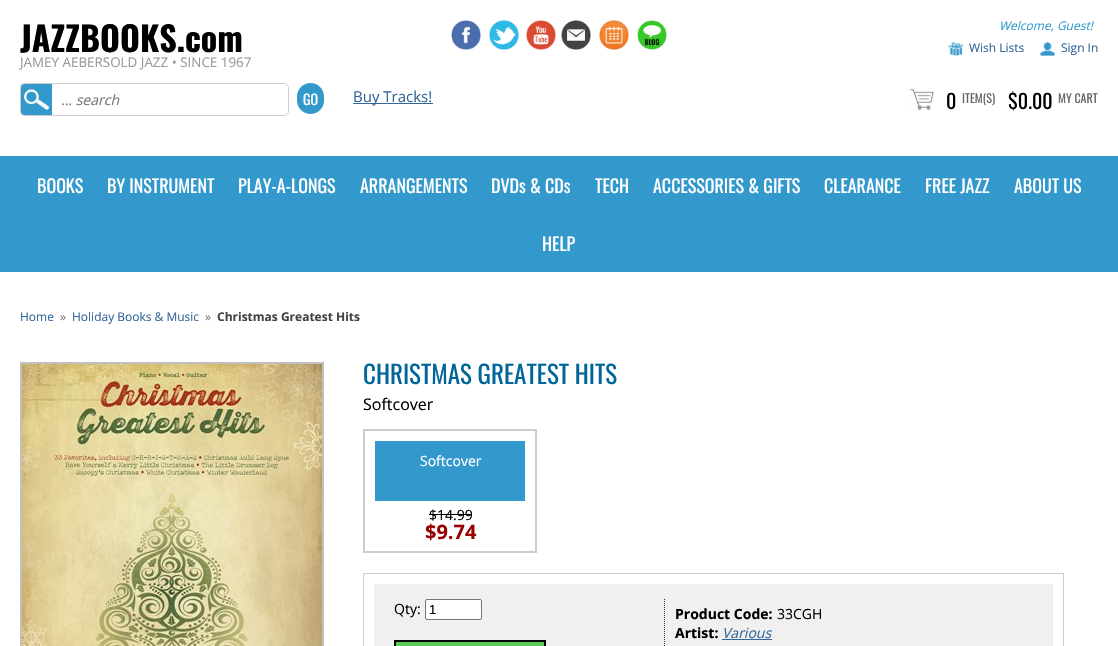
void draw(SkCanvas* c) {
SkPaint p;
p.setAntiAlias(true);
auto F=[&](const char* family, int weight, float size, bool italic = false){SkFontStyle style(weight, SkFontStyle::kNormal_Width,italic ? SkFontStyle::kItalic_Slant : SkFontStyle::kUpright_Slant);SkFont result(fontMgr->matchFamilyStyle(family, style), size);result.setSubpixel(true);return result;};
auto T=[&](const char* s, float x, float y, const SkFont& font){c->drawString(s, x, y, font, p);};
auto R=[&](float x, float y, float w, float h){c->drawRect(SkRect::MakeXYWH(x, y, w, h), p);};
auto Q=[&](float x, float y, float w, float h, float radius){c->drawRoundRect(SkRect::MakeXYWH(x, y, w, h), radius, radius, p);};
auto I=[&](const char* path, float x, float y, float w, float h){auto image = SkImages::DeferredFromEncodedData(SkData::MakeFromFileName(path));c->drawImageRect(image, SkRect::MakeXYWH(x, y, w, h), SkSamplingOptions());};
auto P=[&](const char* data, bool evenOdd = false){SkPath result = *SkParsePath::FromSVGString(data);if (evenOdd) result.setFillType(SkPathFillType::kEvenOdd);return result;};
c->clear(0xffffffff);
auto f1 = F("Oswald",700,34);
p.setColor(0xff000000);
T("JAZZBOOKS.com",20,52,f1);
auto f2 = F("Open Sans",400,13.4);
p.setColor(0xff999999);
T("JAMEY AEBERSOLD JAZZ • SINCE 1967",20,67,f2);
I("1.png",451,20,30,30);
I("2.png",489,20,30,30);
I("3.png",526,20,30,30);
I("4.png",561,20,30,30);
I("5.png",599,20,30,30);
I("6.png",637,20,30,30);
auto f3 = F("Open Sans",400,12,true);
p.setColor(0xff3399cc);
T("Welcome, Guest!",999,30,f3);
I("7.png",948,42,15,14);
auto f4 = F("Open Sans",400,12);
p.setColor(0xff336699);
T("Wish Lists",969,52,f4);
I("8.png",1040,42,15,14);
T("Sign In",1061,52,f4);
I("9.png",21,84,31,31);
p.setStroke(true);
p.setStrokeWidth(1);
p.setColor(0xffcccccc);
c->drawRoundRect(SkRect::MakeXYWH(20.5,83.5,268,32),4.5,4.5,p);
auto f5 = F("Open Sans",400,14,true);
p.setStroke(false);
p.setColor(0xff777777);
T("... search",61,105,f5);
p.setColor(0xff3399cc);
Q(297,83,27,31,13.5);
auto f6 = F("Oswald",400,14);
p.setColor(0xffffffff);
T("GO",303,105,f6);
p.setColor(0xff336699);
R(353,103,80,1);
auto f7 = F("Open Sans",400,15);
T("Buy Tracks!",353,102,f7);
I("10.png",910,88,24,24);
auto f8 = F("Oswald",400,20);
p.setColor(0xff000000);
T("0",946,109,f8);
auto f9 = F("Oswald",400,12);
p.setColor(0xff666666);
T("ITEM(S)",962,103,f9);
p.setColor(0xff000000);
T("$0.00",1008,109,f8);
p.setColor(0xff666666);
T("MY CART",1058,103,f9);
p.setColor(0xff3399cc);
R(0,156,1118,116);
auto f10 = F("Oswald",400,18);
p.setColor(0xffffffff);
T("BOOKS",37,193,f10);
T("BY INSTRUMENT",107,193,f10);
T("PLAY-A-LONGS",238,193,f10);
T("ARRANGEMENTS",360,193,f10);
T("DVDs & CDs",491,193,f10);
T("TECH",595,193,f10);
T("ACCESSORIES & GIFTS",653,193,f10);
T("CLEARANCE",824,193,f10);
T("FREE JAZZ",925,193,f10);
T("ABOUT US",1014,193,f10);
T("HELP",542,251,f10);
p.setColor(0xff336699);
T("Home",20,321,f4);
p.setColor(0xff777777);
T("»",60,321,f4);
p.setColor(0xff336699);
T("Holiday Books & Music",72,321,f4);
p.setColor(0xff777777);
T("»",205,321,f4);
auto f11 = F("Open Sans",700,12);
p.setColor(0xff434343);
T("Christmas Greatest Hits",217,321,f11);
p.setStroke(true);
p.setStrokeWidth(2);
p.setColor(0xffc0c0c0);
c->drawRect(SkRect::MakeXYWH(21,363,302,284),p);
I("11.png",22,364,300,282);
auto f12 = F("Oswald",400,25);
p.setStroke(false);
p.setColor(0xff006699);
T("CHRISTMAS GREATEST HITS",363,384,f12);
auto f13 = F("Open Sans",400,16);
p.setColor(0xff000000);
T("Softcover",363,410,f13);
p.setStroke(true);
p.setColor(0xffcccccc);
c->drawRect(SkRect::MakeXYWH(364,430,172,122),p);
p.setStroke(false);
p.setColor(0xff3399cc);
R(375,441,150,60);
auto f14 = F("Open Sans",400,14);
p.setColor(0xffffffff);
T("Softcover",420,466,f14);
p.setColor(0xff000000);
T("$14.99",429,520,f14);
R(429,514,43,1);
auto f15 = F("Open Sans",700,20);
p.setColor(0xff990000);
T("$9.74",425,539,f15);
p.setStroke(true);
p.setStrokeWidth(1);
p.setColor(0xffcccccc);
c->drawRect(SkRect::MakeXYWH(363.5,573.5,700,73),p);
p.setStroke(false);
p.setColor(0xfff0f0f0);
R(374,584,679,62);
p.setStroke(true);
p.setColor(0xff333333);
p.setPathEffect(SkDashPathEffect::Make({{1,1}}, 0));
c->drawPath(P("M664.5 599v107"),p);
p.setPathEffect(nullptr);
p.setStroke(false);
p.setColor(0xff000000);
T("Qty:",394,614,f14);
p.setColor(0xffffffff);
c->drawRoundRect(SkRect::MakeXYWH(425.5,599.5,56,20),1.5,1.5,p);
p.setStroke(true);
p.setColor(0xff767676);
c->drawRoundRect(SkRect::MakeXYWH(425.5,599.5,56,20),1.5,1.5,p);
auto f16 = F("Liberation Sans",400,13);
p.setStroke(false);
p.setColor(0xff000000);
T("1",429,614,f16);
p.setColor(0xff59cb59);
c->drawRect(SkRect::MakeXYWH(395,641,150,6),p);
p.setStroke(true);
p.setStrokeWidth(2);
p.setColor(0xff000000);
c->drawRect(SkRect::MakeXYWH(395,641,150,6),p);
auto f17 = F("Open Sans",700,14);
p.setStroke(false);
T("Product Code:",675,619,f17);
T("33CGH",777,619,f14);
T("Artist:",675,638,f17);
p.setColor(0xff336699);
T("Various",722,638,f5);
R(722,639,50,1);
}
